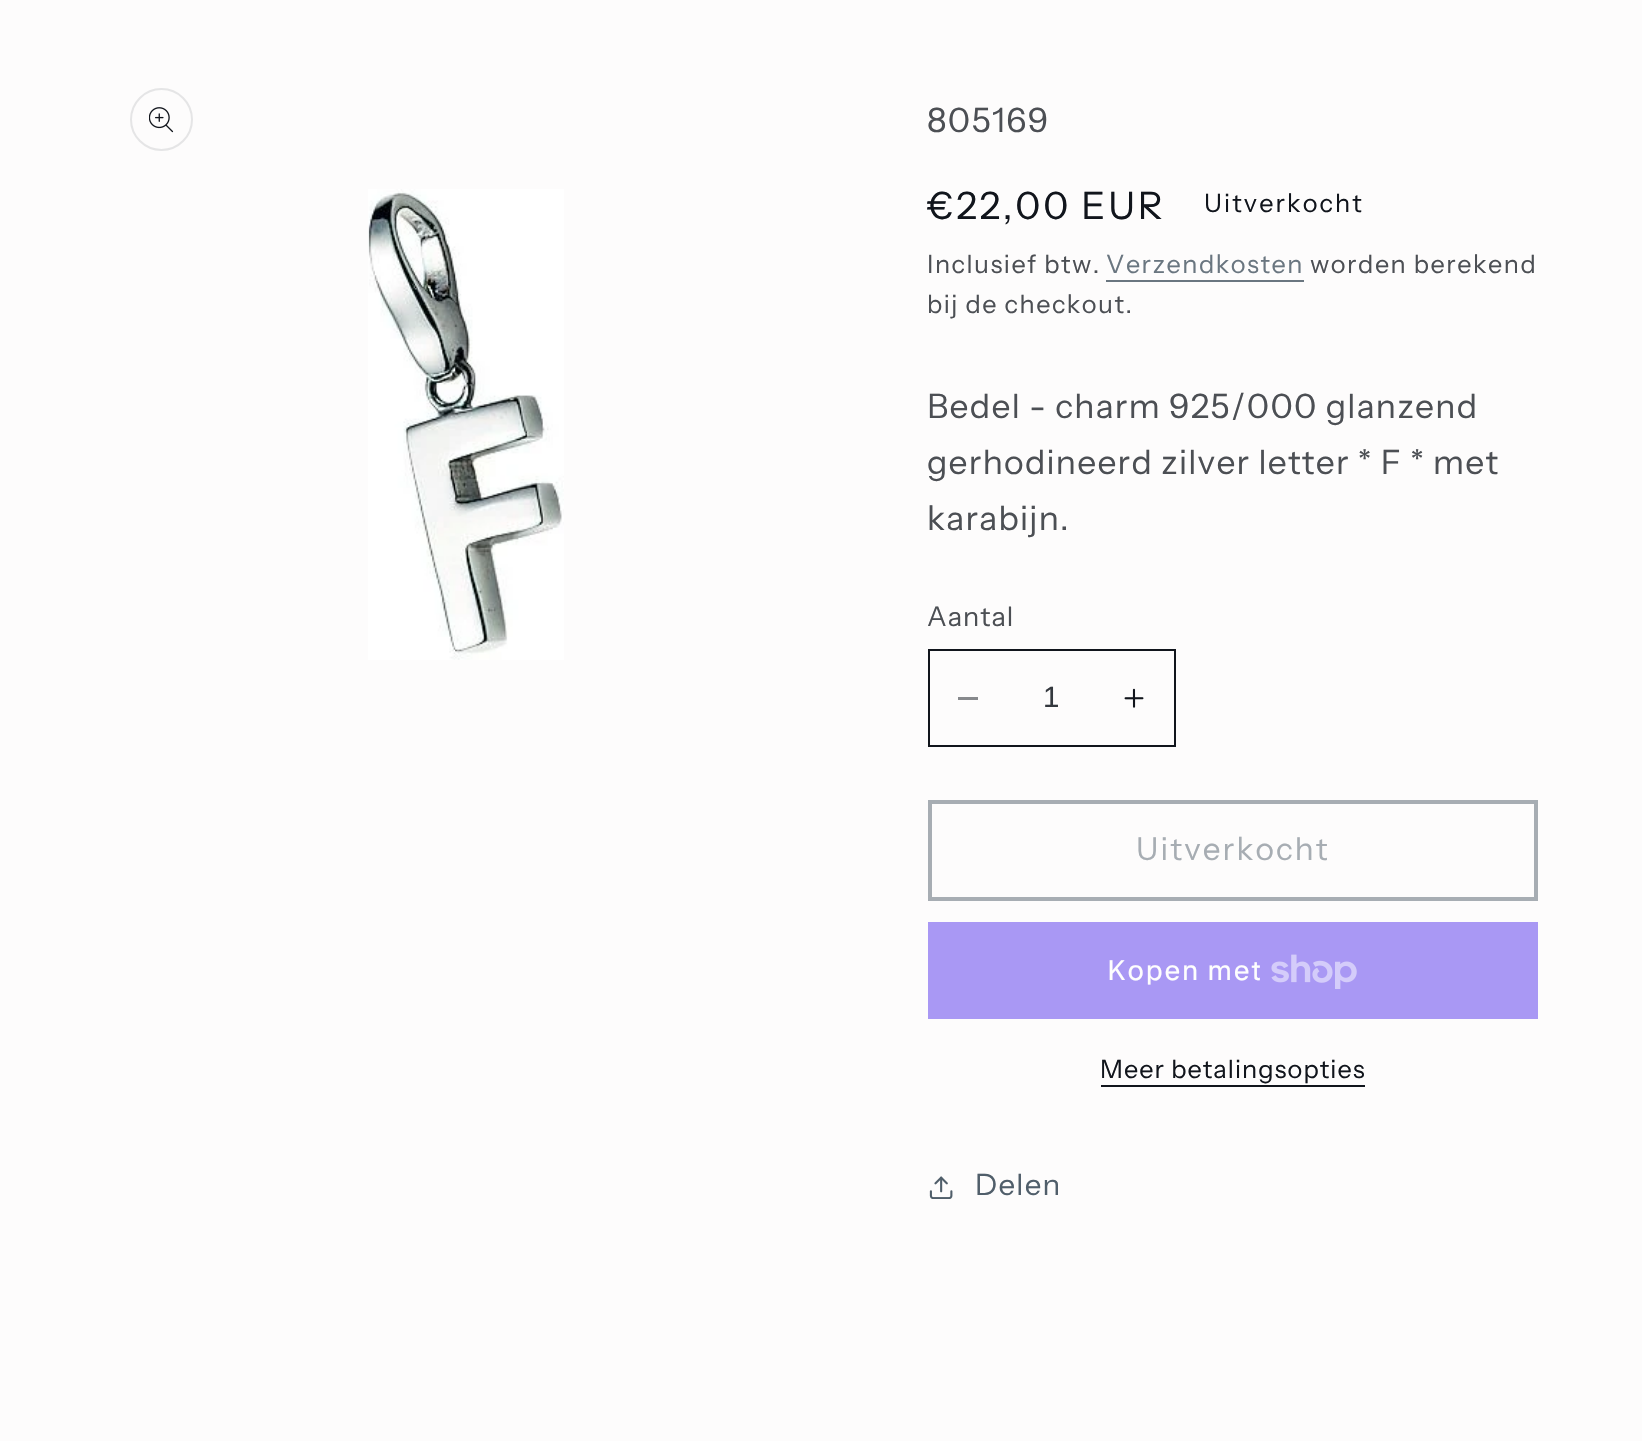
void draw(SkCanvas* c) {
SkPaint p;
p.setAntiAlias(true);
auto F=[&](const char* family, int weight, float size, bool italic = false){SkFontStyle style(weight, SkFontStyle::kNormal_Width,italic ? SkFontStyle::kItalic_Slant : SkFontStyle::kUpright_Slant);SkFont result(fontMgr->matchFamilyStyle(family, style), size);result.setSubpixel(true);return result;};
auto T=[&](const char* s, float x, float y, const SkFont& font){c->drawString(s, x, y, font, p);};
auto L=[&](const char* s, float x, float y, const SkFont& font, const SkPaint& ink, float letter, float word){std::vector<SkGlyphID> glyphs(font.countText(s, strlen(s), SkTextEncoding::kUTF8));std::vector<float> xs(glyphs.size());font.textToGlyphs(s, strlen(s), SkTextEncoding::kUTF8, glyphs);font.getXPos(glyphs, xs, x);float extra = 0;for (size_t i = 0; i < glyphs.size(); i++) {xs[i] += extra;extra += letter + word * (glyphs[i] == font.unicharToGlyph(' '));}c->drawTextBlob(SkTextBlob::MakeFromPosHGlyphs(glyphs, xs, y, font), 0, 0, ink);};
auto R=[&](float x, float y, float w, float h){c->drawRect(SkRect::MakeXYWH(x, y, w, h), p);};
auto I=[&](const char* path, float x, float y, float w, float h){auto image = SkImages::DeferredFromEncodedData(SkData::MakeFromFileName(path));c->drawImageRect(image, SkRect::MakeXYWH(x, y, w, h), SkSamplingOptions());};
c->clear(0xfffdfcfc);
p.setStroke(true);
p.setStrokeWidth(2);
p.setColor(0xffe5e5e6);
c->drawCircle(161.5,119.5,30.5,p);
I("1.png",149,107,25,26);
I("2.png",368,189,196,471);
auto f1 = F("Instrument Sans",400,33.6);
p.setStroke(false);
p.setColor(0xff4c4f54);
L("805169",927,132,f1,p,1.25,0);
auto f2 = F("Instrument Sans",400,37.75);
p.setColor(0xff11151c);
L("€22,00 EUR",927,219,f2,p,2.75,0);
auto f3 = F("Instrument Sans",400,25.25);
L("Uitverkocht",1204,212,f3,p,2.1,0);
p.setColor(0xff4c4f54);
L("Inclusief btw.",927,273,f3,p,1.5,0);
p.setColor(0xff6a7680);
L("Verzendkosten",1106,273,f3,p,1.5,0);
R(1106,280,198,2);
p.setColor(0xff4c4f54);
L("worden berekend",1310,273,f3,p,1.5,0);
L("bij de checkout.",927,313,f3,p,1.5,0);
L("Bedel - charm 925/000 glanzend",927,418,f1,p,1.25,0);
L("gerhodineerd zilver letter * F * met",927,474,f1,p,1.25,0);
L("karabijn.",927,530,f1,p,1.25,0);
auto f4 = F("Instrument Sans",400,27);
L("Aantal",927,626,f4,p,1,0);
p.setColor(0xff87898c);
R(958,697,20,3);
I("3.png",1124,688,20,20);
p.setStroke(true);
p.setColor(0xff11151c);
c->drawRect(SkRect::MakeXYWH(929,650,246,96),p);
auto f5 = F("Liberation Sans",400,29.5);
p.setStroke(false);
p.setColor(0xff34383e);
T("1",1043,707,f5);
p.setStroke(true);
p.setStrokeWidth(4);
p.setColor(0xffa7adb3);
c->drawRect(SkRect::MakeXYWH(930,802,606,97),p);
auto f6 = F("Instrument Sans",400,31.5);
p.setStroke(false);
L("Uitverkocht",1136,860,f6,p,2.1,0);
p.setColor(0xffa998f4);
R(928,922,610,97);
auto f7 = F("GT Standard",400,28);
p.setColor(0xfffefefe);
L("Kopen met",1107,980,f7,p,1.25,0);
I("4.png",1271,954,86,35);
p.setColor(0xff11151c);
L("Meer betalingsopties",1100,1078,f3,p,1.05,0);
R(1101,1085,264,2);
I("5.png",929,1176,24,23);
auto f8 = F("Instrument Sans",400,29.5);
p.setColor(0xff505e6a);
L("Delen",975,1195,f8,p,1.25,0);
}
